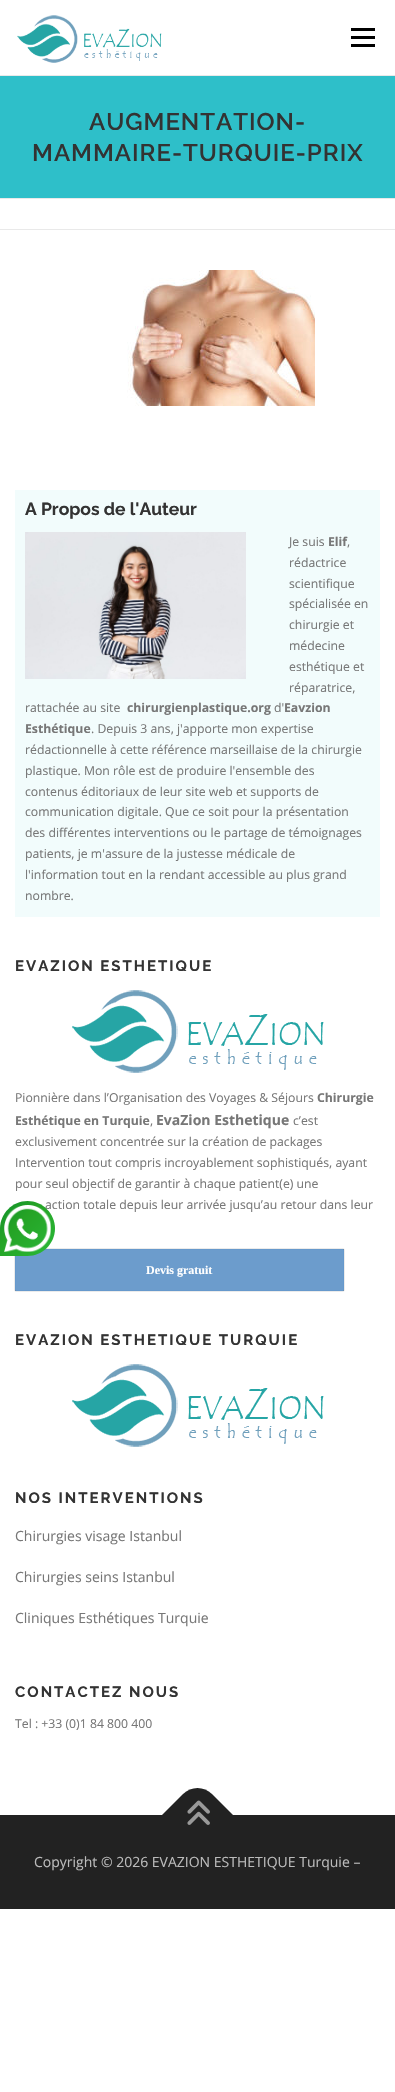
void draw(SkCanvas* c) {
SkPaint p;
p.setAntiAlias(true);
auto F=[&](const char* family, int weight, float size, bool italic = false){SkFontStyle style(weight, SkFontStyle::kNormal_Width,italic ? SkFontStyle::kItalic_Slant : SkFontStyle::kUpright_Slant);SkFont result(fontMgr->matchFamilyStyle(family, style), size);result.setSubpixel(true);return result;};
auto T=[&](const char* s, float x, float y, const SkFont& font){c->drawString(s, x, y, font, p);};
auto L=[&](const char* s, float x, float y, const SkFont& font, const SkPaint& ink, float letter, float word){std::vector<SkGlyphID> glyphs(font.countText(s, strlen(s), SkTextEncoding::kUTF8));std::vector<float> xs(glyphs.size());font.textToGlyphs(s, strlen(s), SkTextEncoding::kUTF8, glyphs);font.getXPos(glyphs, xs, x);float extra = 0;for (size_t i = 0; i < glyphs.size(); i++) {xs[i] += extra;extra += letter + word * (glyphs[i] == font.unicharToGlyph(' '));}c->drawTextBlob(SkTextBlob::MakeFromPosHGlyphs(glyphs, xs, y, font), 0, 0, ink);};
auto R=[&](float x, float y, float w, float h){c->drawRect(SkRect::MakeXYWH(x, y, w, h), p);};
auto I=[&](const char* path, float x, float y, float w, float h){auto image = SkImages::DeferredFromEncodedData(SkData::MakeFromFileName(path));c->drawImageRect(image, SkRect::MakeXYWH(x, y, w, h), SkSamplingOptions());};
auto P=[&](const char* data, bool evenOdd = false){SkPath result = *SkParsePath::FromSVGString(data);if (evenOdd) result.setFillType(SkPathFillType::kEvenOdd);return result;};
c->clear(0xffffffff);
I("1.png",17,15,145,48);
p.setColor(0xff000000);
R(351,36,24,3);
R(351,28,24,3);
R(351,44,24,3);
p.setColor(0xffe9e9e9);
R(0,75,395,1);
R(0,198,395,1);
p.setColor(0xff2ebfc9);
R(0,76,395,122);
auto f1 = F("Raleway",600,24);
p.setColor(0xff333333);
L("AUGMENTATION-",89,130,f1,p,1,0);
L("MAMMAIRE-TURQUIE-PRIX",32,161,f1,p,1,0);
p.setColor(0xffe9e9e9);
R(0,229,395,1);
I("2.png",127,270,188,136);
p.setColor(0xfff2fcfc);
R(15,490,365,427);
auto f2 = F("Raleway",700,17.5);
p.setColor(0xff333333);
T("A Propos de l'Auteur",25,515,f2);
I("3.png",25,532,221,147);
auto f3 = F("Open Sans",400,12.25);
p.setColor(0xff777777);
T("Je suis",289,546,f3);
auto f4 = F("Open Sans",700,12.25);
T("Elif",328,546,f4);
T(",",347,546,f3);
T("rédactrice",289,567,f3);
T("scientifique",289,588,f3);
T("spécialisée en",289,608,f3);
T("chirurgie et",289,629,f3);
T("médecine",289,650,f3);
T("esthétique et",289,671,f3);
T("réparatrice,",289,692,f3);
T("rattachée au site",25,712,f3);
T("chirurgienplastique.org",127,712,f4);
T("d'",274,712,f3);
T("Eavzion",284,712,f4);
T("Esthétique",25,733,f4);
T(". Depuis 3 ans, j'apporte mon expertise",91,733,f3);
T("rédactionnelle à cette référence marseillaise de la chirurgie",25,754,f3);
T("plastique. Mon rôle est de produire l'ensemble des",25,775,f3);
T("contenus éditoriaux de leur site web et supports de",25,796,f3);
T("communication digitale. Que ce soit pour la présentation",25,816,f3);
T("des différentes interventions ou le partage de témoignages",25,837,f3);
T("patients, je m'assure de la justesse médicale de",25,858,f3);
T("l'information tout en la rendant accessible au plus grand",25,879,f3);
T("nombre.",25,900,f3);
auto f5 = F("Raleway",700,15);
p.setColor(0xff333333);
L("EVAZION ESTHETIQUE",15,971,f5,p,2,0);
I("4.png",72,990,252,83);
p.setColor(0xff777777);
T("Pionnière dans l’Organisation des Voyages & Séjours",15,1102,f3);
T("Chirurgie",317,1102,f4);
T("Esthétique en Turquie",15,1125,f4);
T(",",150,1125,f3);
auto f6 = F("Open Sans",700,14);
T("EvaZion Esthetique",156,1125,f6);
T("c’est",293,1125,f3);
T("exclusivement concentrée sur la création de packages",15,1146,f3);
T("Intervention tout compris incroyablement sophistiqués, ayant",15,1167,f3);
T("pour seul objectif de garantir à chaque patient(e) une",15,1188,f3);
T("action totale depuis leur arrivée jusqu’au retour dans leur",45,1209,f3);
p.setColor(0xff333333);
p.setMaskFilter(SkMaskFilter::MakeBlur(kNormal_SkBlurStyle, .5));
c->drawRoundRect(SkRect::MakeXYWH(15,1249,329,42),1,1,p);
p.setMaskFilter(nullptr);
p.setColor(0xff6c9ccc);
c->drawRoundRect(SkRect::MakeXYWH(15.5,1249.5,328,41),.5,.5,p);
p.setStroke(true);
p.setStrokeWidth(1);
p.setColor(0xff6699cc);
c->drawRoundRect(SkRect::MakeXYWH(15.5,1249.5,328,41),.5,.5,p);
auto f7 = F("Liberation Serif",700,12);
p.setStroke(false);
p.setColor(0xffffffff);
T("Devis gratuit",146,1274,f7);
p.setColor(0xff333333);
L("EVAZION ESTHETIQUE TURQUIE",15,1345,f5,p,2,0);
I("4.png",72,1364,252,83);
L("NOS INTERVENTIONS",15,1503,f5,p,2,0);
auto f8 = F("Open Sans",400,14);
p.setColor(0xff777777);
T("Chirurgies visage Istanbul",15,1541,f8);
T("Chirurgies seins Istanbul",15,1582,f8);
T("Cliniques Esthétiques Turquie",15,1623,f8);
p.setColor(0xff333333);
L("CONTACTEZ NOUS",15,1697,f5,p,2,0);
p.setColor(0xff777777);
T("Tel : +33 (0)1 84 800 400",15,1728,f3);
p.setColor(0xff222222);
R(0,1815,395,94);
c->drawPath(P("M162 1815l21-21c8-8 21-8 29 0l21 21l-35 36z"),p);
I("5.png",187,1800,23,25);
p.setColor(0xffbbbbbb);
T("Copyright © 2026 EVAZION ESTHETIQUE Turquie –",34,1867,f8);
{
const SkColor colors[] = {0xff0f912c,0xff25a325,0xff2ab939};
const float stops[] = {0,.37,1};
const SkPoint ends[] = {{0,1201}, {55,1256}};
p.setShader(SkGradientShader::MakeLinear(ends, colors, stops, 3, SkTileMode::kClamp));
p.setAlpha(255);
}
c->drawPath(P("M27.5 1201c15 0 27.5 12.5 27.5 27.5c0 15-12.5 27.5-27.5 27.5h-27.5v-27.5c0-15 12.5-27.5 27.5-27.5z"),p);
I("7.png",16,1218,22,22);
I("6.png",4,1205,47,47);
}
